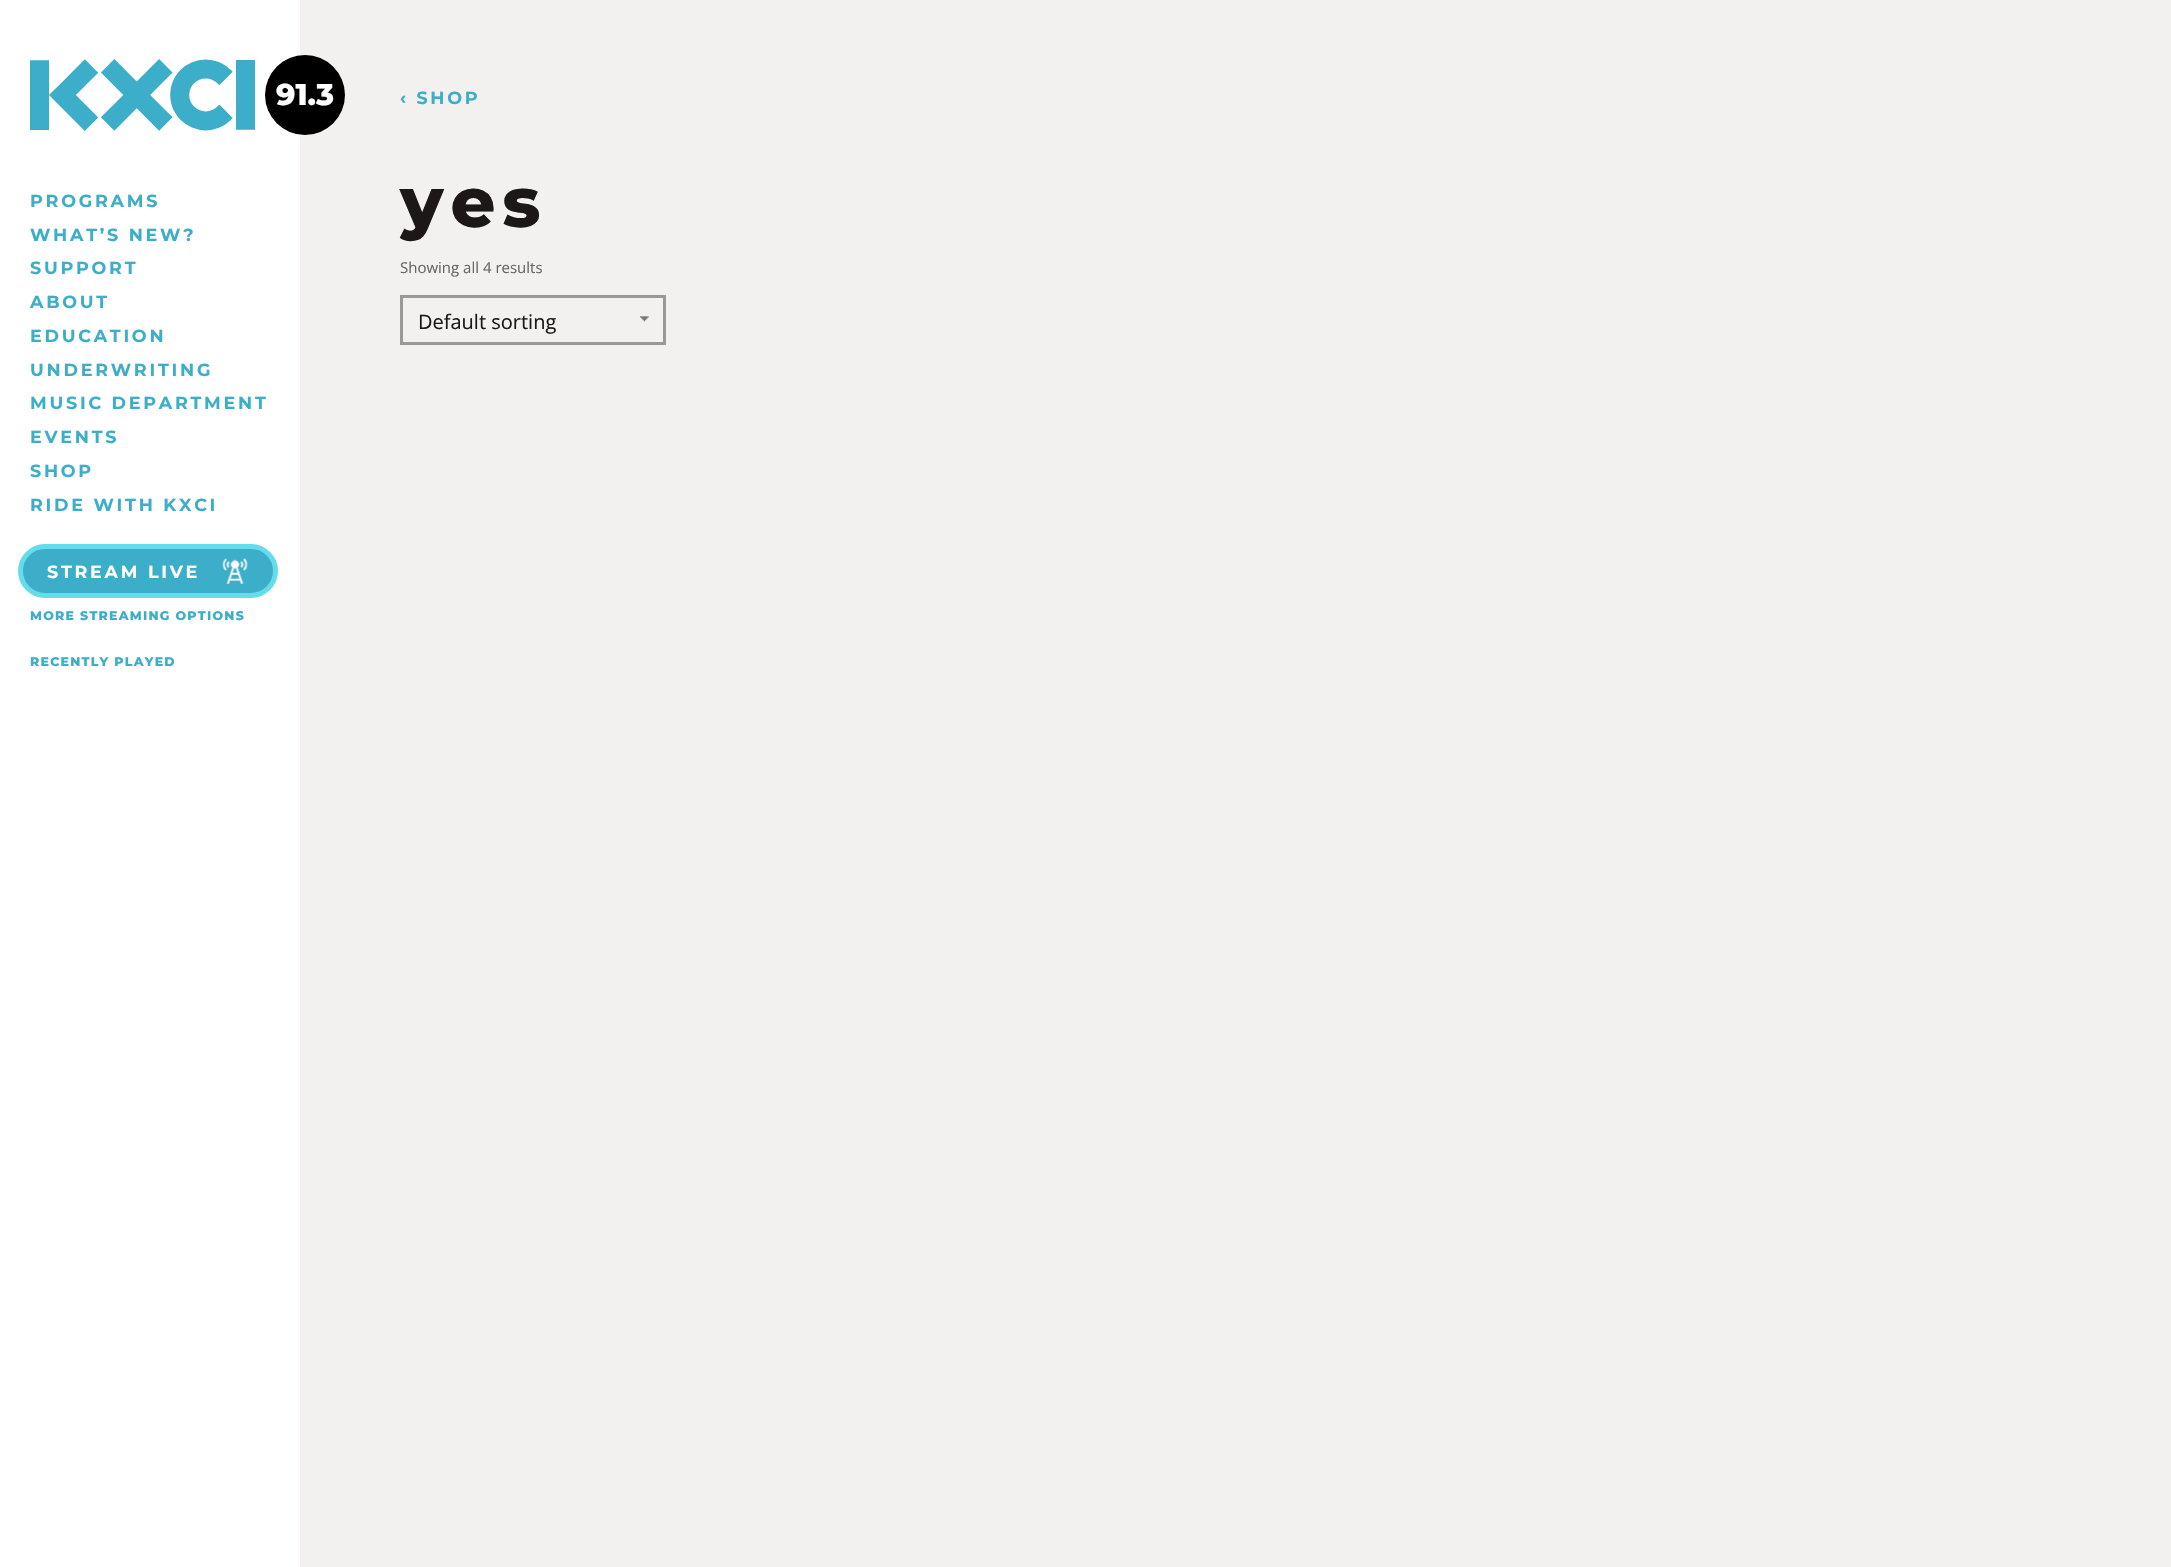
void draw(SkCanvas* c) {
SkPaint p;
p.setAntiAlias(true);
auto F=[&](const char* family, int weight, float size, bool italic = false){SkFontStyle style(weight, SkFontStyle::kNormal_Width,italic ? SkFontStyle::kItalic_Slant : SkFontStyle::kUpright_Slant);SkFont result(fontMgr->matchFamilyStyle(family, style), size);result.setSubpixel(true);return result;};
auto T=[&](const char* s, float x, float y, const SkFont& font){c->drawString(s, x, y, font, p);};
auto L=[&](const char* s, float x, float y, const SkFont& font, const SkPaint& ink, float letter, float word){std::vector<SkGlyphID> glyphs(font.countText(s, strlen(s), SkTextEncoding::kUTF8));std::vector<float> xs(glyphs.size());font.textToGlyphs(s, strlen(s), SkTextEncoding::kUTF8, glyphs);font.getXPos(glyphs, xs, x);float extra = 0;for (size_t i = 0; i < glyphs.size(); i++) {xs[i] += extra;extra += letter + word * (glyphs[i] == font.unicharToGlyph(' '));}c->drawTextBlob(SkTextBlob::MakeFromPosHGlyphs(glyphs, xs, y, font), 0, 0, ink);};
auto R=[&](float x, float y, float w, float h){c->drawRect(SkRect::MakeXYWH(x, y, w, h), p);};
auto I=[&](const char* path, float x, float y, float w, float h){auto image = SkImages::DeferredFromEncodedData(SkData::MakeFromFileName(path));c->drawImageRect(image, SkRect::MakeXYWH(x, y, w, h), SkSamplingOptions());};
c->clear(0xfff2f1f0);
p.setColor(0xffffffff);
R(0,0,300,1567);
I("1.png",30,59,225,72);
p.setColor(0xff000000);
c->drawCircle(305,95,40,p);
auto f1 = F("Montserrat",800,30);
p.setColor(0xffffffff);
T("91.3",276,105,f1);
auto f2 = F("Montserrat",700,17.5);
p.setColor(0xff3caec9);
L("PROGRAMS",30,207,f2,p,2.75,0);
L("WHAT’S NEW?",30,241,f2,p,2.75,0);
L("SUPPORT",30,274,f2,p,2.75,0);
L("ABOUT",30,308,f2,p,2.75,0);
L("EDUCATION",30,342,f2,p,2.75,0);
L("UNDERWRITING",30,376,f2,p,2.75,0);
L("MUSIC DEPARTMENT",30,409,f2,p,2.75,0);
L("EVENTS",30,443,f2,p,2.75,0);
L("SHOP",30,477,f2,p,2.75,0);
L("RIDE WITH KXCI",30,511,f2,p,2.75,0);
c->drawRoundRect(SkRect::MakeXYWH(20.5,546.5,255,49),24.5,24.5,p);
p.setStroke(true);
p.setStrokeWidth(5);
p.setColor(0xff63ddea);
c->drawRoundRect(SkRect::MakeXYWH(20.5,546.5,255,49),24.5,24.5,p);
p.setStroke(false);
p.setColor(0xffffffff);
L("STREAM LIVE",47,578,f2,p,2.75,0);
I("2.png",222,558,26,26);
auto f3 = F("Montserrat",800,12.5);
p.setColor(0xff3caec9);
L("MORE STREAMING OPTIONS",30,620,f3,p,1.25,0);
L("RECENTLY PLAYED",30,666,f3,p,1.25,0);
L("‹ SHOP",400,104,f2,p,2.75,0);
auto f4 = F("Montserrat",800,70);
p.setColor(0xff1c1818);
L("yes",400,227,f4,p,7,0);
auto f5 = F("Open Sans",400,15);
p.setColor(0xff666666);
T("Showing all 4 results",400,273,f5);
I("3.png",640,316,9,6);
p.setStroke(true);
p.setStrokeWidth(3);
p.setColor(0xff999999);
c->drawRect(SkRect::MakeXYWH(401.5,296.5,263,47),p);
auto f6 = F("Open Sans",400,20);
p.setStroke(false);
p.setColor(0xff1c1818);
T("Default sorting",418,329,f6);
}
